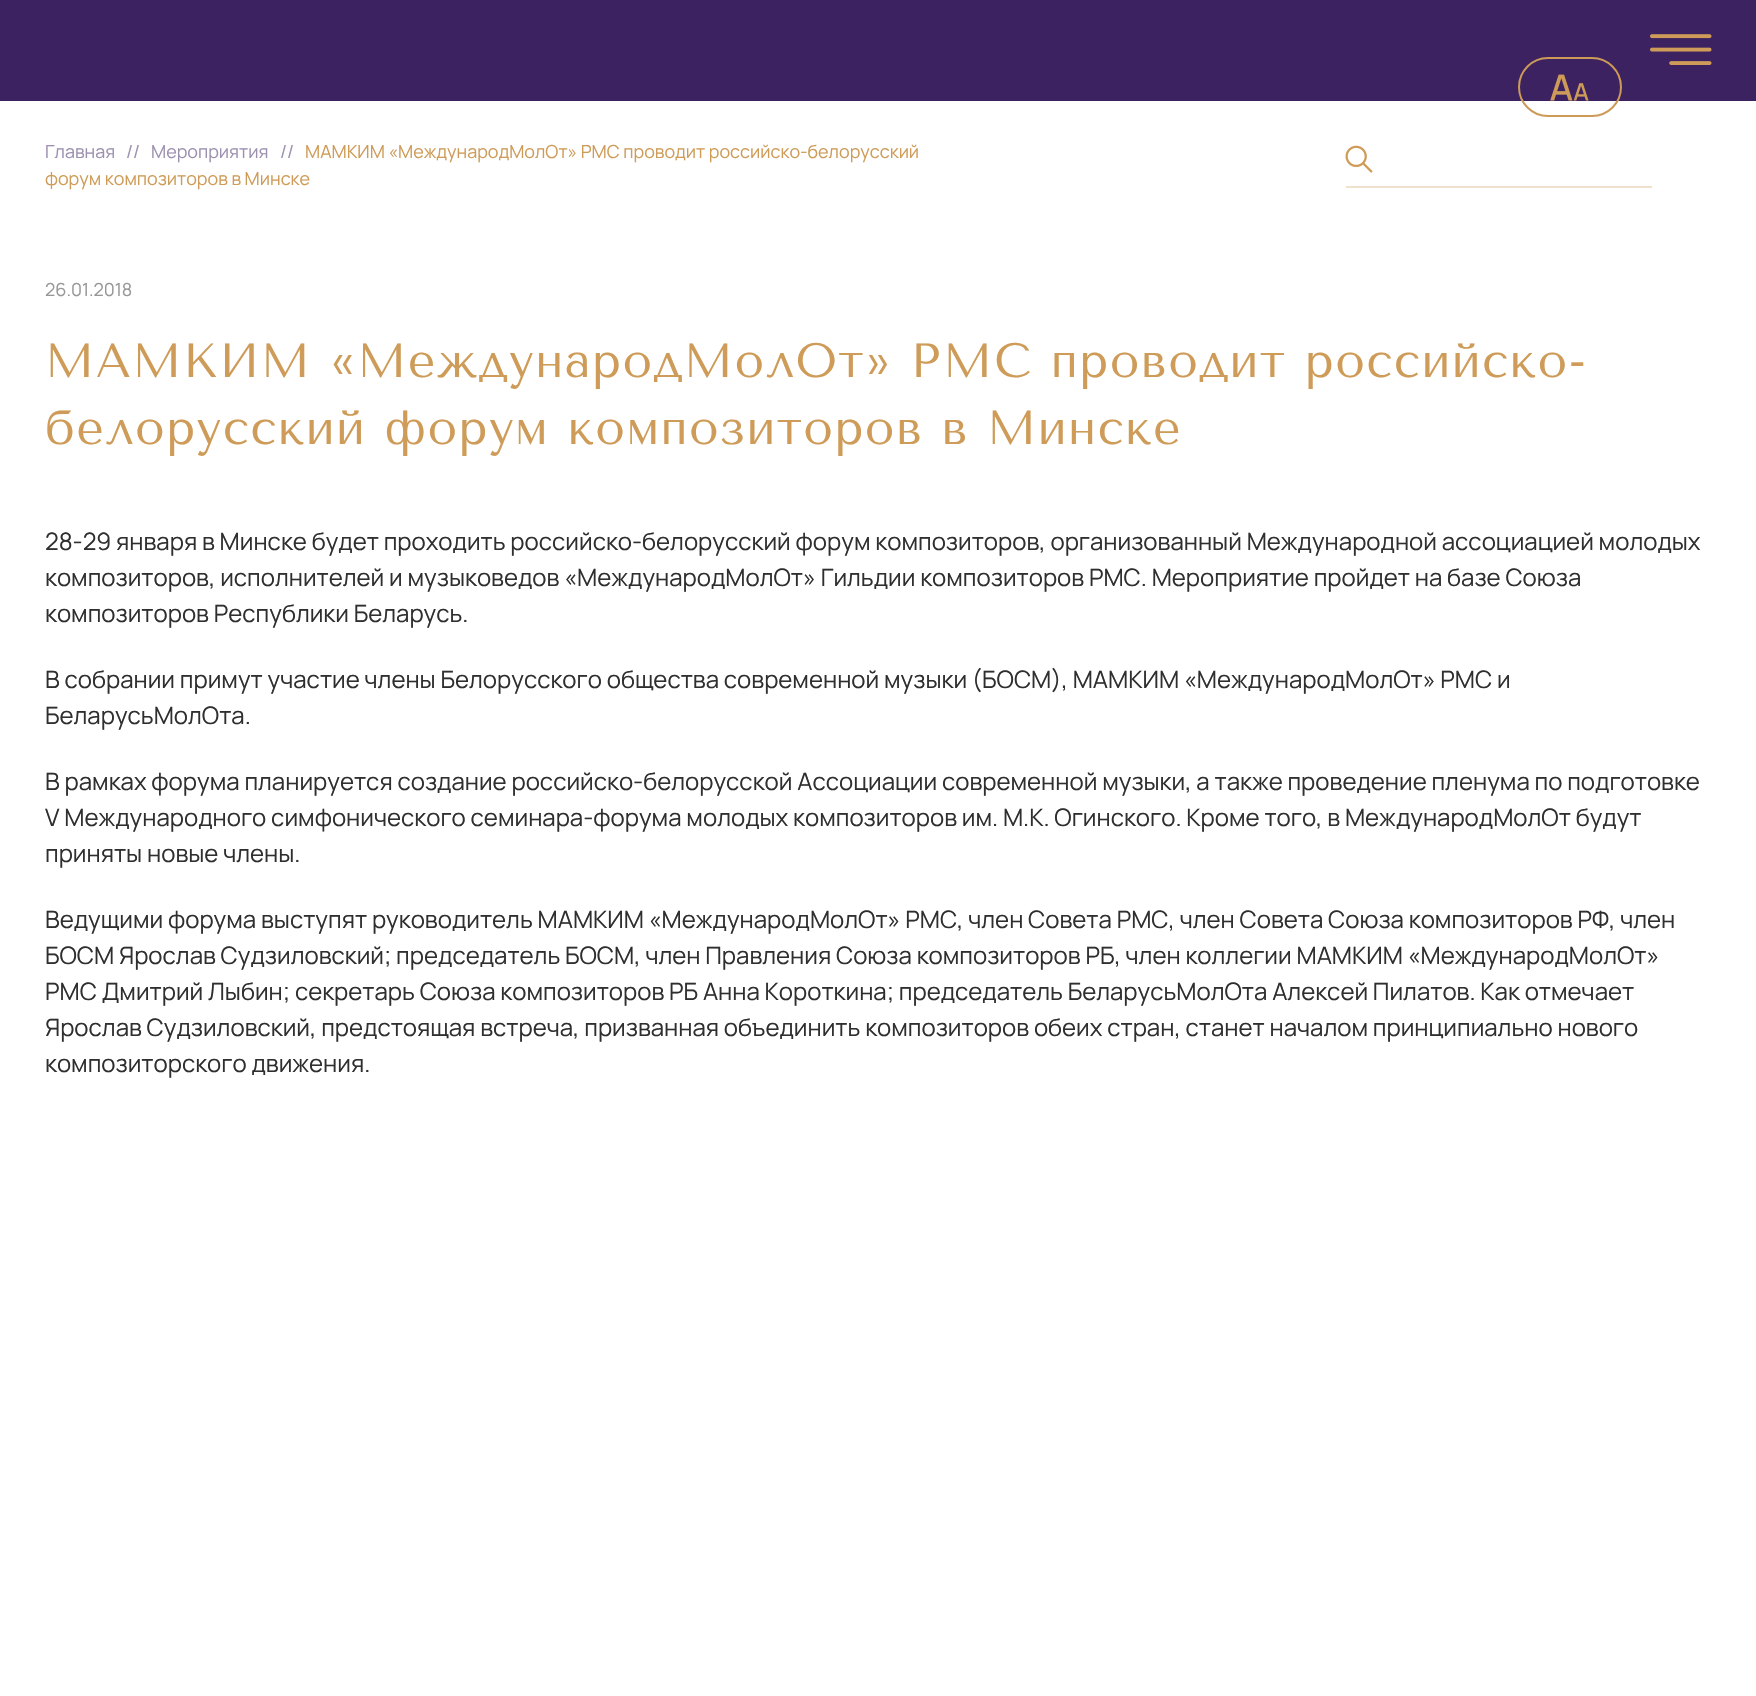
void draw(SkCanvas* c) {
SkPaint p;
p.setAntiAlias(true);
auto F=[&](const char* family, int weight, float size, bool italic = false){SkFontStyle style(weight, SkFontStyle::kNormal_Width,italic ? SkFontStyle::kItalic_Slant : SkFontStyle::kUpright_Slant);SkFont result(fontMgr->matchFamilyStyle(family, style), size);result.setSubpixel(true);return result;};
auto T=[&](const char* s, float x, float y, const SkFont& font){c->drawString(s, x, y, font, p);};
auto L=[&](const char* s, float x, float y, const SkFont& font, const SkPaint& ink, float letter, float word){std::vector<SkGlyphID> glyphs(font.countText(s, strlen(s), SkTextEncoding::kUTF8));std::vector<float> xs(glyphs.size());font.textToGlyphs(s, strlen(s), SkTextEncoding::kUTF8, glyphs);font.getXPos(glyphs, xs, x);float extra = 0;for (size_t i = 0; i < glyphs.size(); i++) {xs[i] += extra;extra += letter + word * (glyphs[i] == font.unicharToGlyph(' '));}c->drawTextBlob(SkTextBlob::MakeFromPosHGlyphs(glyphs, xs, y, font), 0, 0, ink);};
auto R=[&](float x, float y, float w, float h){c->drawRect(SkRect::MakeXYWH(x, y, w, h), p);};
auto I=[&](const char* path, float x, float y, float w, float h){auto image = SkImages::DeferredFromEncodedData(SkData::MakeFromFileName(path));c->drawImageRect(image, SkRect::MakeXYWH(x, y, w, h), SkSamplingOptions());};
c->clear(0xffffffff);
p.setColor(0xff3c2260);
R(0,0,1756,101);
I("1.png",1650,34,62,31);
p.setStroke(true);
p.setStrokeWidth(2);
p.setColor(0xffcd9a58);
c->drawRoundRect(SkRect::MakeXYWH(1519,58,102,58),29,29,p);
I("2.png",1550,74,39,27);
auto f1 = F("Manrope",400,18);
p.setStroke(false);
p.setColor(0xff9d90af);
T("Главная",45,158,f1);
T("//",126,158,f1);
T("Мероприятия",151,158,f1);
T("//",280,158,f1);
p.setColor(0xffce9c58);
T("МАМКИМ «МеждународМолОт» РМС проводит российско-белорусский",305,158,f1);
T("форум композиторов в Минске",45,185,f1);
p.setColor(0xfff0e1cd);
R(1346,186,306,2);
I("3.png",1345,145,28,28);
p.setColor(0xff979797);
T("26.01.2018",45,296,f1);
auto f2 = F("Tenor Sans",400,48);
p.setColor(0xffce9c58);
L("МАМКИМ «МеждународМолОт» РМС проводит российско-",45,377,f2,p,1.45,0);
L("белорусский форум композиторов в Минске",45,444,f2,p,1.45,0);
auto f3 = F("Manrope",400,24);
p.setColor(0xff2f2f2f);
T("28-29 января в Минске будет проходить российско-белорусский форум композиторов, организованный Международной ассоциацией молодых",45,550,f3);
T("композиторов, исполнителей и музыковедов «МеждународМолОт» Гильдии композиторов РМС. Мероприятие пройдет на базе Союза",45,586,f3);
T("композиторов Республики Беларусь.",45,622,f3);
T("В собрании примут участие члены Белорусского общества современной музыки (БОСМ), МАМКИМ «МеждународМолОт» РМС и",45,688,f3);
T("БеларусьМолОта.",45,724,f3);
T("В рамках форума планируется создание российско-белорусской Ассоциации современной музыки, а также проведение пленума по подготовке",45,790,f3);
T("V Международного симфонического семинара-форума молодых композиторов им. М.К. Огинского. Кроме того, в МеждународМолОт будут",45,826,f3);
T("приняты новые члены.",45,862,f3);
T("Ведущими форума выступят руководитель МАМКИМ «МеждународМолОт» РМС, член Совета РМС, член Совета Союза композиторов РФ, член",45,928,f3);
T("БОСМ Ярослав Судзиловский; председатель БОСМ, член Правления Союза композиторов РБ, член коллегии МАМКИМ «МеждународМолОт»",45,964,f3);
T("РМС Дмитрий Лыбин; секретарь Союза композиторов РБ Анна Короткина; председатель БеларусьМолОта Алексей Пилатов. Как отмечает",45,1000,f3);
T("Ярослав Судзиловский, предстоящая встреча, призванная объединить композиторов обеих стран, станет началом принципиально нового",45,1036,f3);
T("композиторского движения.",45,1072,f3);
}
